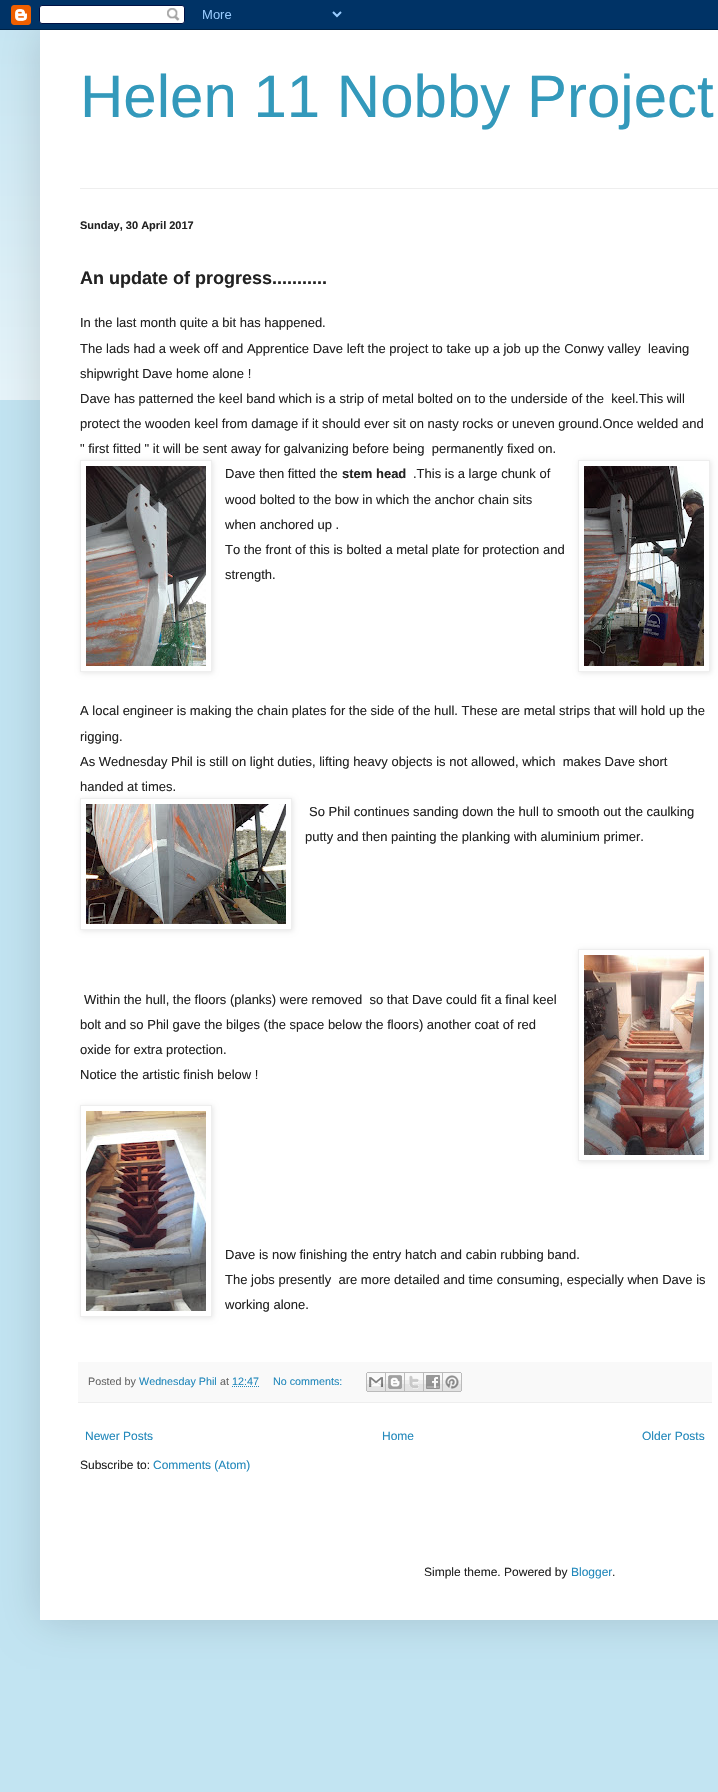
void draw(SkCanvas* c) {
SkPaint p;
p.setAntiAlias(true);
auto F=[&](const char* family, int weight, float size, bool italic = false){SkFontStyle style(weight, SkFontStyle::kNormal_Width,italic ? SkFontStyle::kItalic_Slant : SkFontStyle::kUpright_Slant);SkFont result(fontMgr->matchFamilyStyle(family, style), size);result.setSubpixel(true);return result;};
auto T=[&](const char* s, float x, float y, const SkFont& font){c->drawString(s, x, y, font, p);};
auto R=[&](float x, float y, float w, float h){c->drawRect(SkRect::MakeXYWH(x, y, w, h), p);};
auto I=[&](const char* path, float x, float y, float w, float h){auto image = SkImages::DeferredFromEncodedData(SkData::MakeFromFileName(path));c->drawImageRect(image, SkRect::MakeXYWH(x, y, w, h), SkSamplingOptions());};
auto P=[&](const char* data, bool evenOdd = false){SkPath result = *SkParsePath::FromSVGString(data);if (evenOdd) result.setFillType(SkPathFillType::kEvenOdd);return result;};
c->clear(0xffc2e4f2);
I("2.png",0,30,40,370);
p.setColor(0x26000000);
p.setMaskFilter(SkMaskFilter::MakeBlur(kNormal_SkBlurStyle, 20));
c->drawRect(SkRect::MakeXYWH(40,30,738,1590),p);
p.setMaskFilter(nullptr);
I("1.png",0,0,718,30);
p.setColor(0xffffffff);
R(40,30,678,1590);
auto f1 = F("Liberation Sans",400,60);
p.setColor(0xff3399bb);
T("Helen 11 Nobby Project",80,117,f1);
p.setColor(0xffeeeeee);
R(80,188,638,1);
auto f2 = F("Liberation Sans",700,11);
p.setColor(0xff222222);
T("Sunday, 30 April 2017",80,229,f2);
auto f3 = F("Liberation Sans",700,18);
T("An update of progress...........",80,284,f3);
auto f4 = F("Liberation Sans",400,13);
T("In the last month quite a bit has happened.",80,327,f4);
T("The lads had a week off and Apprentice Dave left the project to take up a job up the Conwy valley  leaving",80,353,f4);
T("shipwright Dave home alone !",80,378,f4);
T("Dave has patterned the keel band which is a strip of metal bolted on to the underside of the  keel.This will",80,403,f4);
T("protect the wooden keel from damage if it should ever sit on nasty rocks or uneven ground.Once welded and",80,428,f4);
T("\" first fitted \" it will be sent away for galvanizing before being  permanently fixed on.",80,453,f4);
c->save();
c->clipPath(P("M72 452h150v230h-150zm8 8h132v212h-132z",true),true);
p.setColor(0x1a000000);
p.setMaskFilter(SkMaskFilter::MakeBlur(kNormal_SkBlurStyle, 2.5));
c->drawRect(SkRect::MakeXYWH(81,461,132,212),p);
p.setMaskFilter(nullptr);
c->restore();
p.setStroke(true);
p.setStrokeWidth(1);
p.setColor(0xffeeeeee);
c->drawRect(SkRect::MakeXYWH(80.5,460.5,131,211),p);
I("3.png",86,466,120,200);
p.setStroke(false);
p.setColor(0xff222222);
T("Dave then fitted the",225,478,f4);
auto f5 = F("Liberation Sans",700,13);
T("stem head",342,478,f5);
T(".This is a large chunk of",413,478,f4);
c->save();
c->clipPath(P("M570 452h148v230h-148zm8 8h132v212h-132z",true),true);
p.setColor(0x1a000000);
p.setMaskFilter(SkMaskFilter::MakeBlur(kNormal_SkBlurStyle, 2.5));
c->drawRect(SkRect::MakeXYWH(579,461,132,212),p);
p.setMaskFilter(nullptr);
c->restore();
p.setStroke(true);
p.setColor(0xffeeeeee);
c->drawRect(SkRect::MakeXYWH(578.5,460.5,131,211),p);
I("4.png",584,466,120,200);
p.setStroke(false);
p.setColor(0xff222222);
T("wood bolted to the bow in which the anchor chain sits",225,504,f4);
T("when anchored up .",225,529,f4);
T("To the front of this is bolted a metal plate for protection and",225,554,f4);
T("strength.",225,579,f4);
T("A local engineer is making the chain plates for the side of the hull. These are metal strips that will hold up the",80,715,f4);
T("rigging.",80,741,f4);
T("As Wednesday Phil is still on light duties, lifting heavy objects is not allowed, which  makes Dave short",80,766,f4);
T("handed at times.",80,791,f4);
c->save();
c->clipPath(P("M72 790h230v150h-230zm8 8h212v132h-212z",true),true);
p.setColor(0x1a000000);
p.setMaskFilter(SkMaskFilter::MakeBlur(kNormal_SkBlurStyle, 2.5));
c->drawRect(SkRect::MakeXYWH(81,799,212,132),p);
p.setMaskFilter(nullptr);
c->restore();
p.setStroke(true);
p.setColor(0xffeeeeee);
c->drawRect(SkRect::MakeXYWH(80.5,798.5,211,131),p);
I("5.png",86,804,200,120);
p.setStroke(false);
p.setColor(0xff222222);
T("So Phil continues sanding down the hull to smooth out the caulking",309,816,f4);
T("putty and then painting the planking with aluminium primer.",305,841,f4);
T("Within the hull, the floors (planks) were removed  so that Dave could fit a final keel",84,1004,f4);
c->save();
c->clipPath(P("M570 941h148v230h-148zm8 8h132v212h-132z",true),true);
p.setColor(0x1a000000);
p.setMaskFilter(SkMaskFilter::MakeBlur(kNormal_SkBlurStyle, 2.5));
c->drawRect(SkRect::MakeXYWH(579,950,132,212),p);
p.setMaskFilter(nullptr);
c->restore();
p.setStroke(true);
p.setColor(0xffeeeeee);
c->drawRect(SkRect::MakeXYWH(578.5,949.5,131,211),p);
I("6.png",584,955,120,200);
p.setStroke(false);
p.setColor(0xff222222);
T("bolt and so Phil gave the bilges (the space below the floors) another coat of red",80,1029,f4);
T("oxide for extra protection.",80,1054,f4);
T("Notice the artistic finish below !",80,1079,f4);
c->save();
c->clipPath(P("M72 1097h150v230h-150zm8 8h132v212h-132z",true),true);
p.setColor(0x1a000000);
p.setMaskFilter(SkMaskFilter::MakeBlur(kNormal_SkBlurStyle, 2.5));
c->drawRect(SkRect::MakeXYWH(81,1106,132,212),p);
p.setMaskFilter(nullptr);
c->restore();
p.setStroke(true);
p.setColor(0xffeeeeee);
c->drawRect(SkRect::MakeXYWH(80.5,1105.5,131,211),p);
I("7.png",86,1111,120,200);
p.setStroke(false);
p.setColor(0xff222222);
T("Dave is now finishing the entry hatch and cabin rubbing band.",225,1259,f4);
T("The jobs presently  are more detailed and time consuming, especially when Dave is",225,1284,f4);
T("working alone.",225,1309,f4);
p.setColor(0xfff9f9f9);
R(78,1362,634,40);
p.setColor(0xffeeeeee);
R(78,1402,634,1);
auto f6 = F("Liberation Sans",400,10.75);
p.setColor(0xff666666);
T("Posted by",88,1385,f6);
p.setColor(0xff2288bb);
T("Wednesday Phil",139,1385,f6);
p.setColor(0xff666666);
T("at",220,1385,f6);
p.setColor(0xff2288bb);
T("12:47",232,1385,f6);
p.setStroke(true);
p.setPathEffect(SkDashPathEffect::Make({{1,1}}, 0));
c->drawPath(P("M232 1386.5h27"),p);
p.setPathEffect(nullptr);
p.setStroke(false);
T("No comments:",273,1385,f6);
I("8.png",366,1372,20,20);
I("9.png",386,1372,19,20);
I("10.png",405,1372,19,20);
I("11.png",424,1372,19,20);
I("12.png",443,1372,19,20);
auto f7 = F("Liberation Sans",400,12);
T("Newer Posts",85,1440,f7);
T("Home",382,1440,f7);
T("Older Posts",642,1440,f7);
p.setColor(0xff222222);
T("Subscribe to:",80,1469,f7);
p.setColor(0xff2288bb);
T("Comments (Atom)",153,1469,f7);
p.setColor(0xff222222);
T("Simple theme. Powered by",424,1576,f7);
p.setColor(0xff2288bb);
T("Blogger",571,1576,f7);
p.setColor(0xff222222);
T(".",612,1576,f7);
}
